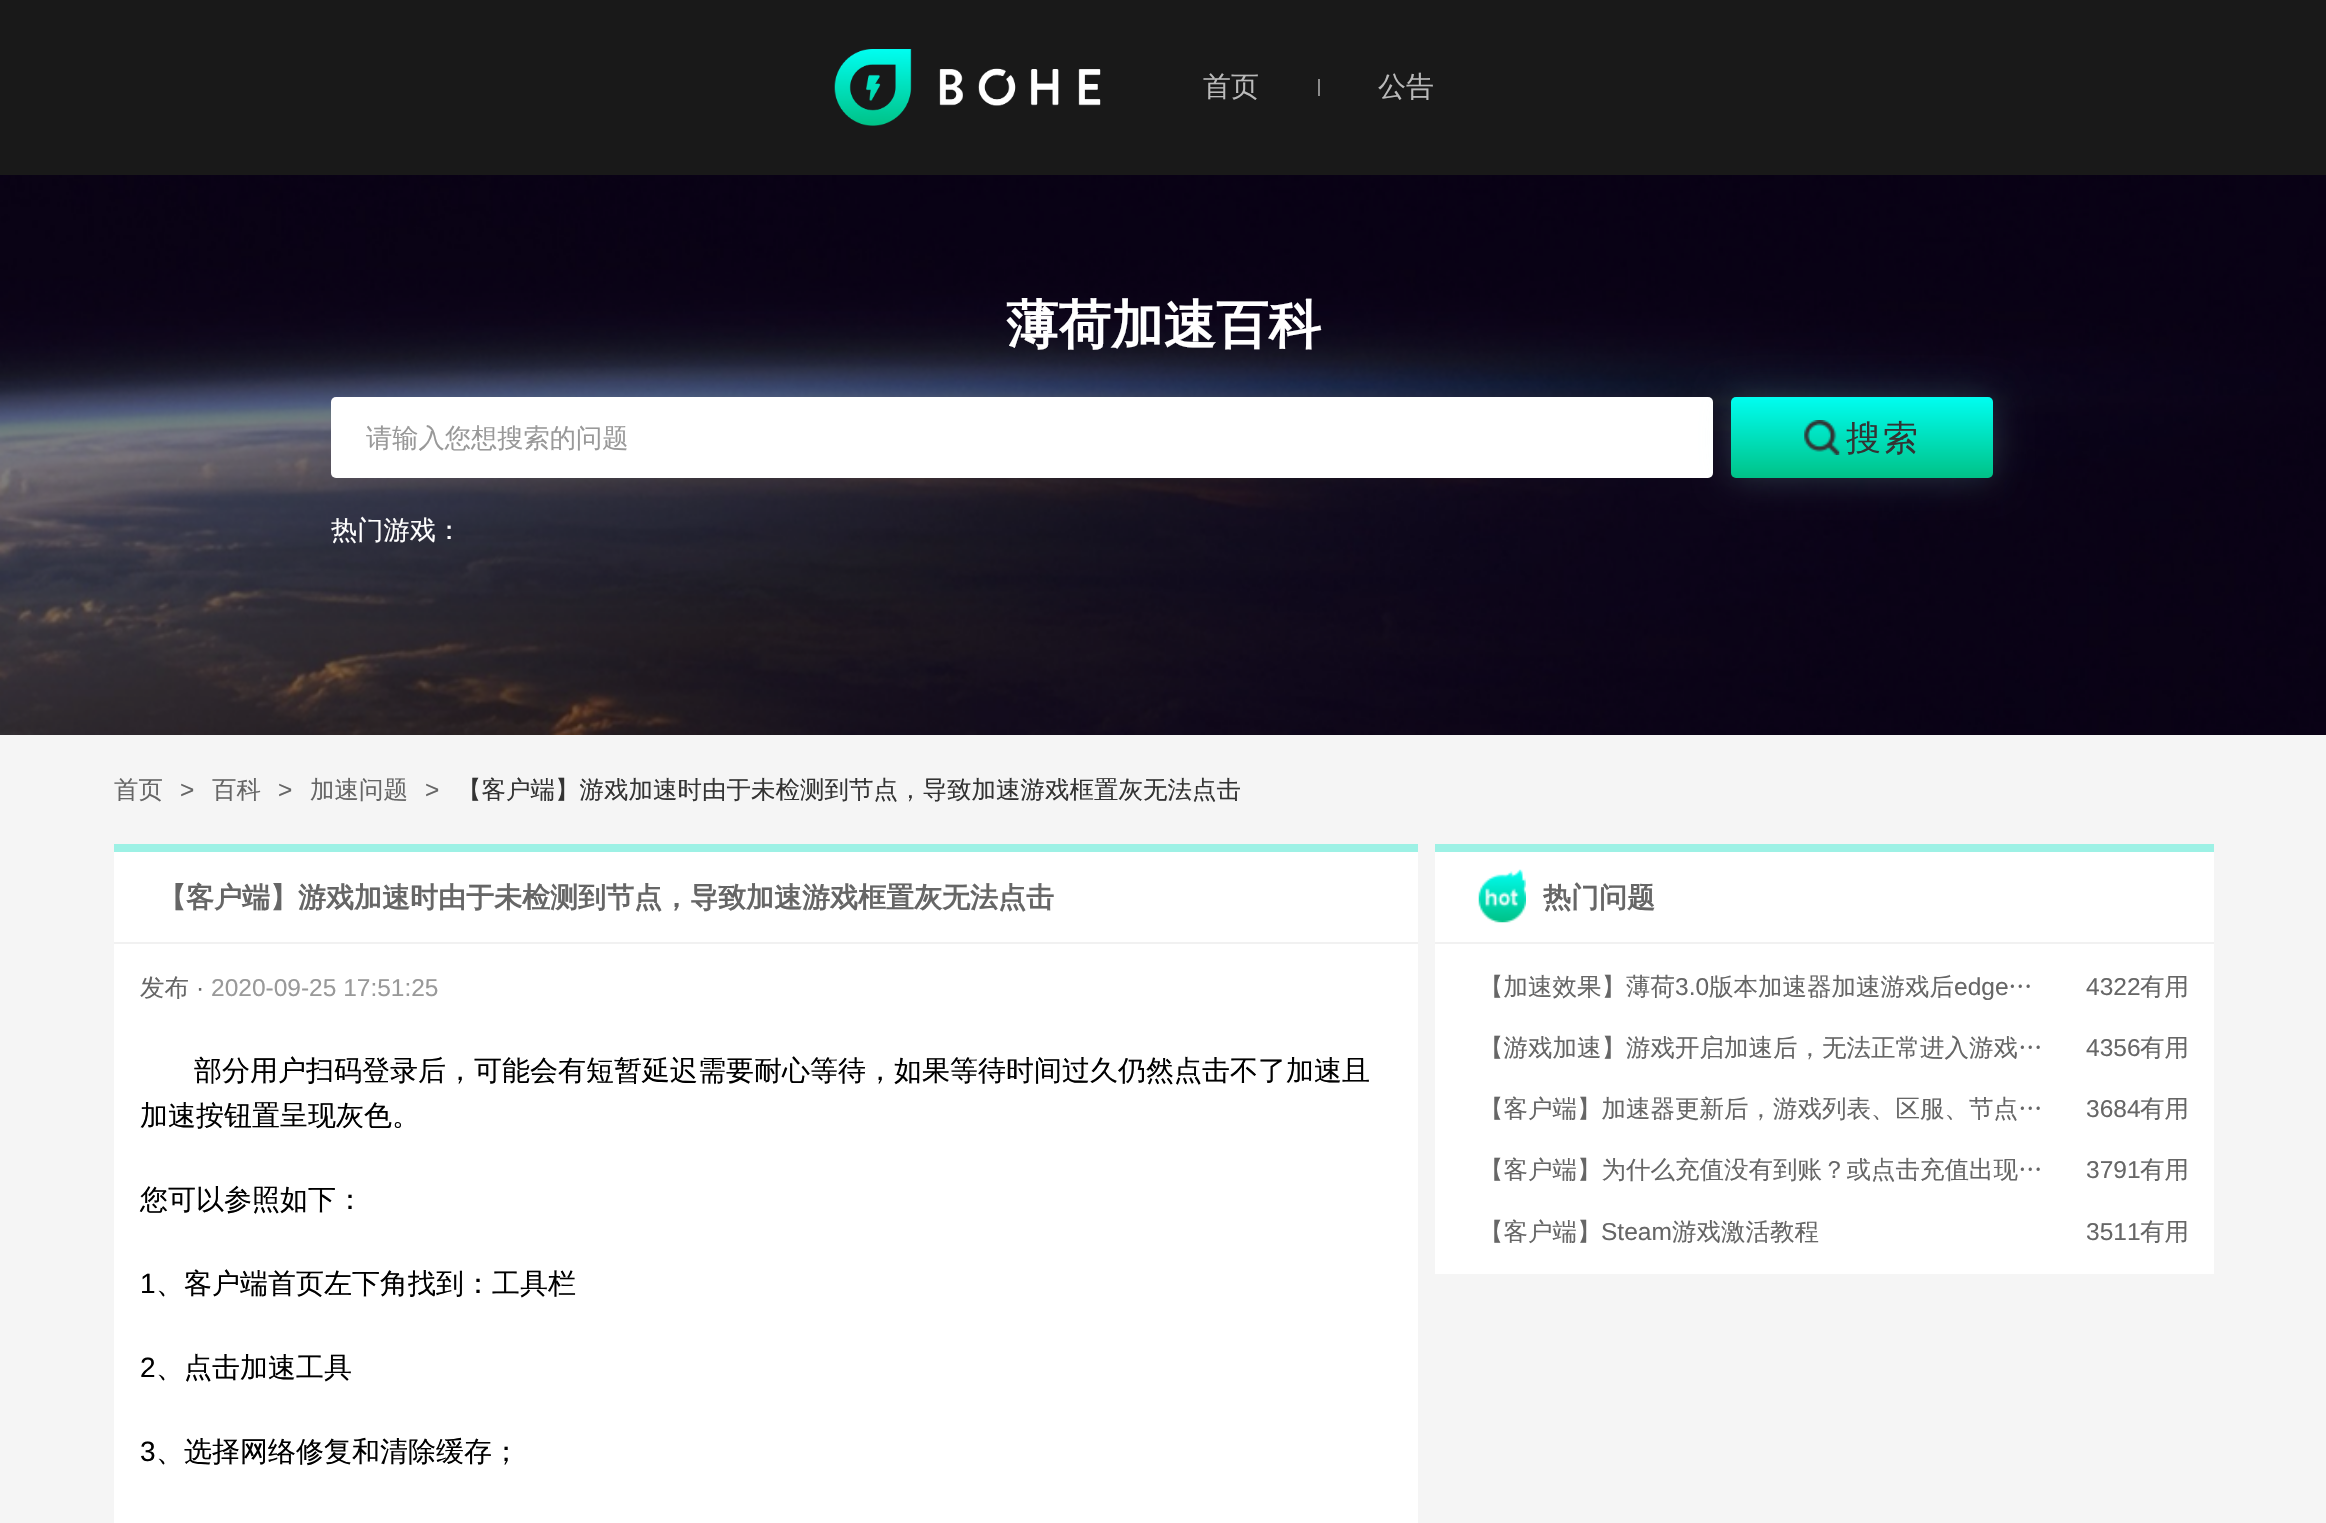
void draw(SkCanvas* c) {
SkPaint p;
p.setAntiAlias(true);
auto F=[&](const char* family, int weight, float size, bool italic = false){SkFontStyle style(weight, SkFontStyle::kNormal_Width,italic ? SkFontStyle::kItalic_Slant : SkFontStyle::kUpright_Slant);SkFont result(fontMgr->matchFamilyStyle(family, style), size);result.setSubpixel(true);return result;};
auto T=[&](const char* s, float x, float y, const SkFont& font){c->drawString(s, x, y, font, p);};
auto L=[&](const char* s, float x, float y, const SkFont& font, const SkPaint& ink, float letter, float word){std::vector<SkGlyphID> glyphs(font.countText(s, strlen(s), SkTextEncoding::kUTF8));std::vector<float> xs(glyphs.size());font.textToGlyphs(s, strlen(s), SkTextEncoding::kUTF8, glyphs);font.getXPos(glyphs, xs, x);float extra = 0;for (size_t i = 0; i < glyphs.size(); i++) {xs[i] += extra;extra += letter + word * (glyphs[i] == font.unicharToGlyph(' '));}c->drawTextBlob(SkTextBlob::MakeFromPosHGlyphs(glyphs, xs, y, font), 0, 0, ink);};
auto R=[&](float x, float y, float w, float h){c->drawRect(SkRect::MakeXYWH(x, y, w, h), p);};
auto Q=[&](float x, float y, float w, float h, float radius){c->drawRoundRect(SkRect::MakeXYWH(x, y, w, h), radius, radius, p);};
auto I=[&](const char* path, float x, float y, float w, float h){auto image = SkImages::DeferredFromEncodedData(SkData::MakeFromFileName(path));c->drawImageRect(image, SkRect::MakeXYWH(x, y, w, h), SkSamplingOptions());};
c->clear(0xfff5f5f5);
p.setColor(0xff191919);
R(0,0,2326,175);
I("1.png",834,49,267,77);
auto f1 = F("WenQuanYi Zen Hei",500,28);
p.setColor(0xffbababa);
T("首页",1203,96,f1);
p.setColor(0xff8c8c8c);
R(1318,79,2,17);
p.setColor(0xffbababa);
T("公告",1378,96,f1);
I("2.png",0,175,2326,560);
auto f2 = F("WenQuanYi Zen Hei",700,52.5);
p.setColor(0xffffffff);
T("薄荷加速百科",1006,343,f2);
Q(331,397,1382,81,5);
auto f3 = F("WenQuanYi Zen Hei",500,26.25);
p.setColor(0xff999999);
T("请输入您想搜索的问题",366,447,f3);
p.setColor(0x339df1e5);
p.setMaskFilter(SkMaskFilter::MakeBlur(kNormal_SkBlurStyle, 17.5));
c->drawRoundRect(SkRect::MakeXYWH(1731,397,262,81),5,5,p);
p.setMaskFilter(nullptr);
{
const SkColor colors[] = {0xff00fef1,0xff00c287};
const float stops[] = {0,1};
const SkPoint ends[] = {{1862,397}, {1862,478}};
p.setShader(SkGradientShader::MakeLinear(ends, colors, stops, 2, SkTileMode::kClamp));
p.setAlpha(255);
}
Q(1731,397,262,81,5);
I("3.png",1804,420,36,35);
auto f4 = F("WenQuanYi Zen Hei",500,35);
p.setShader(nullptr);
p.setColor(0xff333333);
L("搜索",1846,450,f4,p,2,0);
p.setColor(0xffffffff);
T("热门游戏：",331,539,f3);
auto f5 = F("WenQuanYi Zen Hei",500,24.5);
p.setColor(0xff666666);
T("首页",114,798,f5);
auto f6 = F("Liberation Sans",400,24.5);
T(">",180,798,f6);
T("百科",212,798,f5);
T(">",278,798,f6);
T("加速问题",310,798,f5);
T(">",425,798,f6);
p.setColor(0xff333333);
T("【客户端】游戏加速时由于未检测到节点，导致加速游戏框置灰无法点击",457,798,f5);
p.setColor(0xffffffff);
R(114,852,1304,671);
p.setColor(0xff9df1e5);
R(114,844,1304,8);
p.setColor(0xfff1f1f1);
R(114,942,1304,2);
auto f7 = F("WenQuanYi Zen Hei",700,28);
p.setColor(0xff666666);
T("【客户端】游戏加速时由于未检测到节点，导致加速游戏框置灰无法点击",158,907,f7);
T("发布",140,996,f5);
T("·",196,996,f6);
p.setColor(0xff999999);
T("2020-09-25 17:51:25",211,996,f6);
p.setColor(0xff000000);
T("部分用户扫码登录后，可能会有短暂延迟需要耐心等待，如果等待时间过久仍然点击不了加速且",194,1080,f1);
T("加速按钮置呈现灰色。",140,1125,f1);
T("您可以参照如下：",140,1209,f1);
auto f8 = F("Liberation Sans",400,28);
T("1",140,1293,f8);
T("、客户端首页左下角找到：工具栏",156,1293,f1);
T("2",140,1377,f8);
T("、点击加速工具",156,1377,f1);
T("3",140,1461,f8);
T("、选择网络修复和清除缓存；",156,1461,f1);
p.setColor(0xffffffff);
R(1435,852,779,422);
p.setColor(0xff9df1e5);
R(1435,844,779,8);
p.setColor(0xfff1f1f1);
R(1435,942,779,2);
I("4.png",1478,869,48,54);
p.setColor(0xff666666);
T("热门问题",1543,907,f7);
T("【加速效果】薄荷",1479,995,f5);
T("3.0",1675,995,f6);
T("版本加速器加速游戏后",1709,995,f5);
T("edge",1954,995,f6);
T("…",2008,995,f5);
T("4322",2086,995,f6);
T("有用",2140,995,f5);
T("【游戏加速】游戏开启加速后，无法正常进入游戏…",1479,1056,f5);
T("4356",2086,1056,f6);
T("有用",2140,1056,f5);
T("【客户端】加速器更新后，游戏列表、区服、节点…",1479,1117,f5);
T("3684",2086,1117,f6);
T("有用",2140,1117,f5);
T("【客户端】为什么充值没有到账？或点击充值出现…",1479,1178,f5);
T("3791",2086,1178,f6);
T("有用",2140,1178,f5);
T("【客户端】",1479,1240,f5);
T("Steam",1601,1240,f6);
T("游戏激活教程",1672,1240,f5);
T("3511",2086,1240,f6);
T("有用",2140,1240,f5);
}
